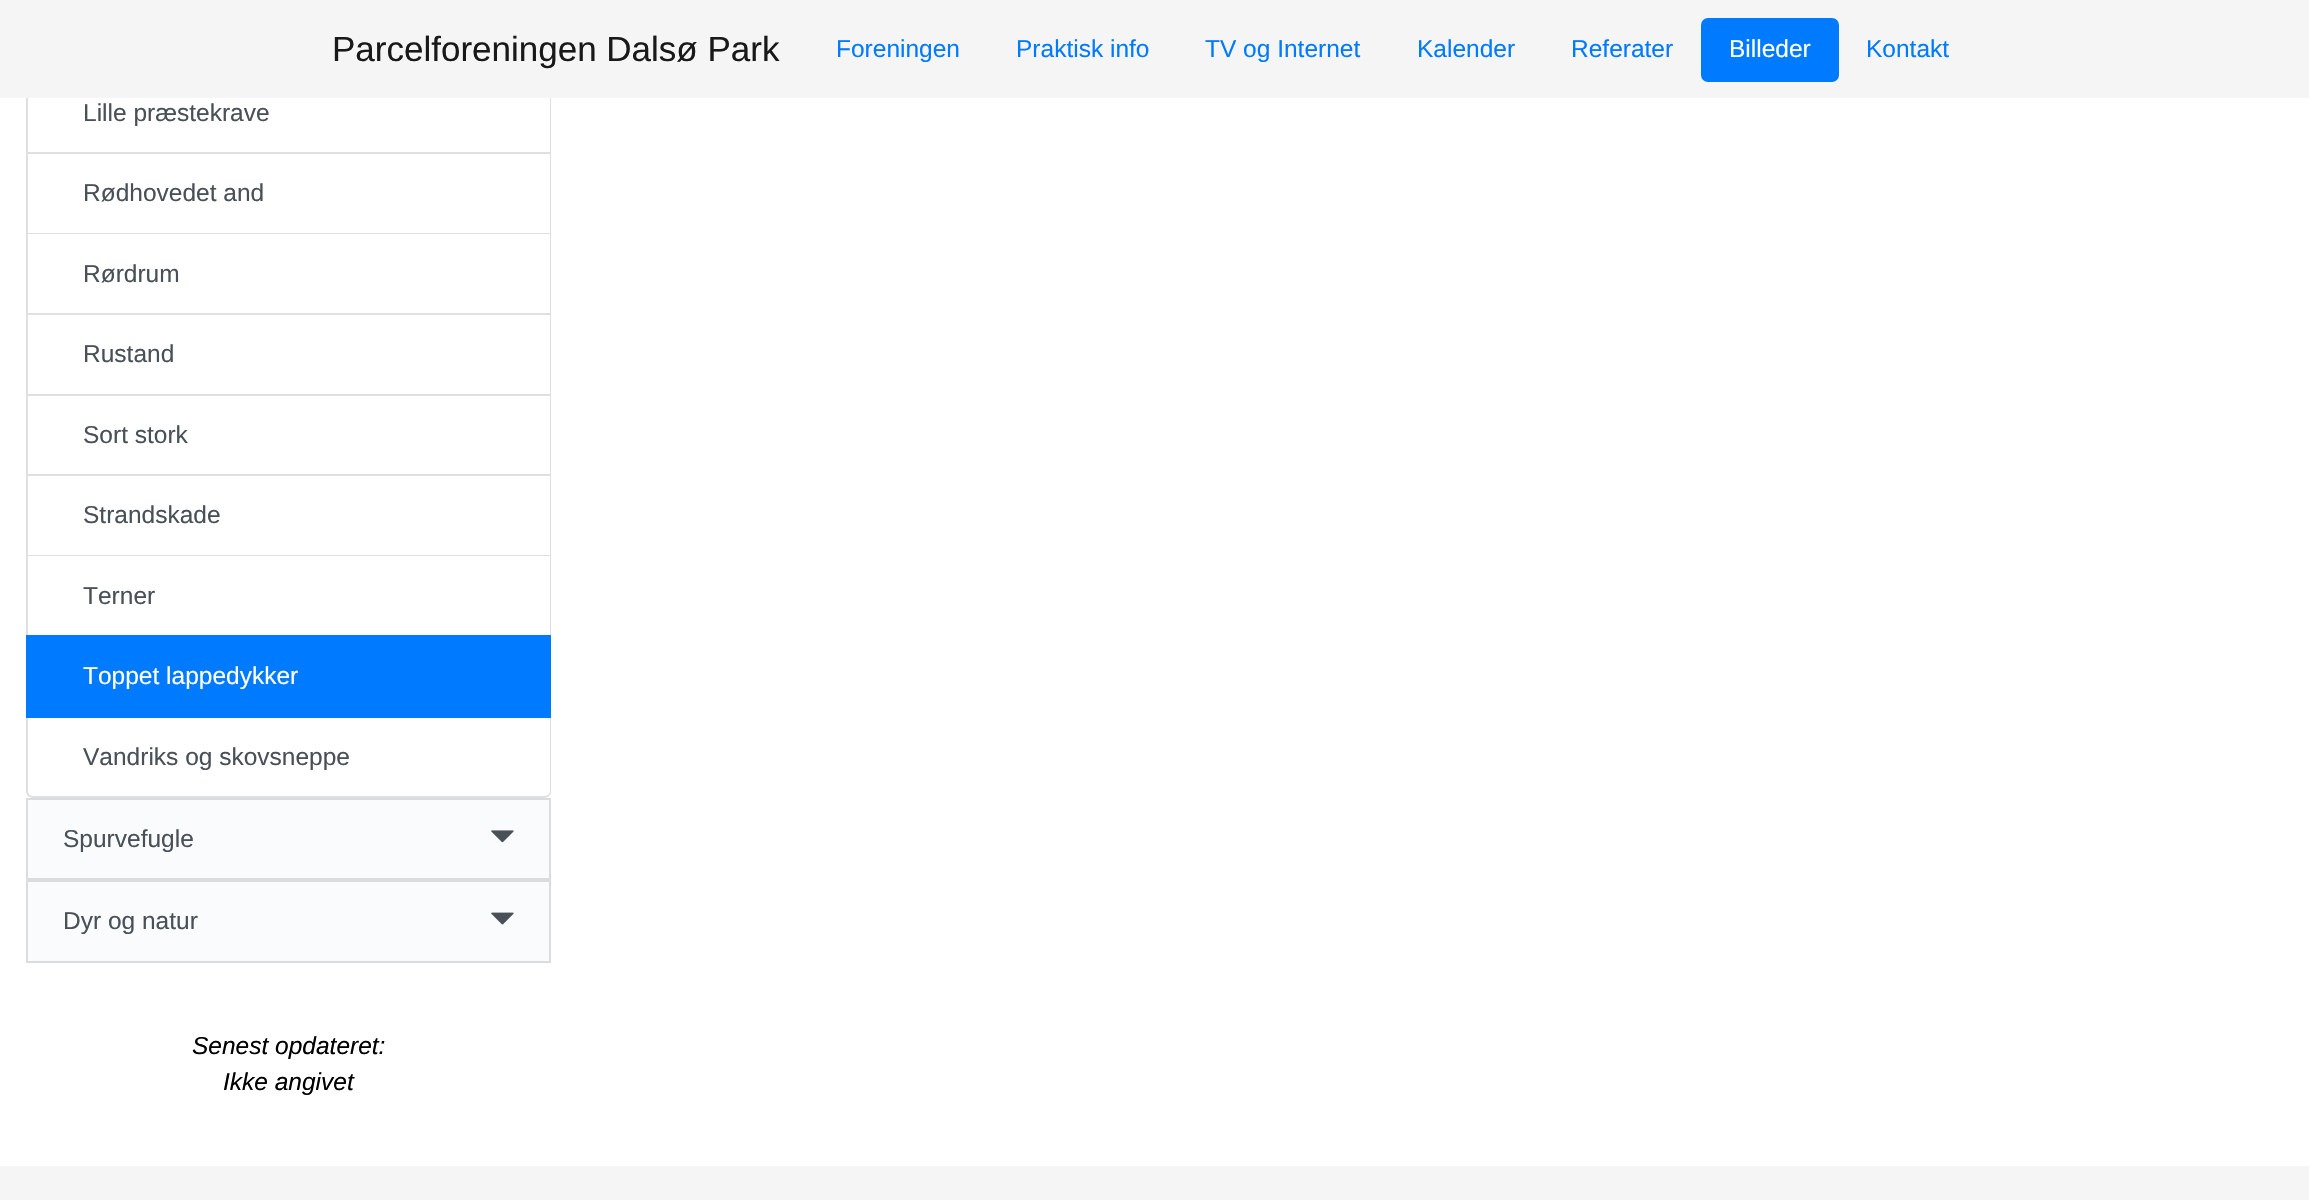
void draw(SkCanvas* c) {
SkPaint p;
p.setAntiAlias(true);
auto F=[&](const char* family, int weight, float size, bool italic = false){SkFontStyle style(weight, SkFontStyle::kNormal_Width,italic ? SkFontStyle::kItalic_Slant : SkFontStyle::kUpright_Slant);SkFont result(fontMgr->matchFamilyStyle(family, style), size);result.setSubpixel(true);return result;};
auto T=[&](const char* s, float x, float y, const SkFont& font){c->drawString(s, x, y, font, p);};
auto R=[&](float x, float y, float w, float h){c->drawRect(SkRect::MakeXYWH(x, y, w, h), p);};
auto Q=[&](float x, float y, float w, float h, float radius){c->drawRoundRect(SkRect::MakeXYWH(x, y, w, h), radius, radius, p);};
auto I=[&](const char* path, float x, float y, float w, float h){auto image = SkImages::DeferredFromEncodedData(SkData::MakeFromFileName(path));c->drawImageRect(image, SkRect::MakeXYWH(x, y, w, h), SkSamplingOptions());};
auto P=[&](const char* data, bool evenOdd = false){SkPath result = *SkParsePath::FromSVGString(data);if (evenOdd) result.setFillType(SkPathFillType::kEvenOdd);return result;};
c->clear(0xffffffff);
p.setColor(0xffdfdfdf);
c->drawPath(P("M551 74v80l-1-2v-78z"),p);
p.setColor(0x1f000000);
c->drawPath(P("M551 154h-525l2-2h522z"),p);
c->drawPath(P("M26 154v-80h2v78z"),p);
p.setColor(0xfff5f5f5);
R(0,0,2309,98);
auto f1 = F("Liberation Sans",400,35);
p.setColor(0xff191919);
T("Parcelforeningen Dalsø Park",332,61,f1);
auto f2 = F("Liberation Sans",400,24.5);
p.setColor(0xff007bff);
T("Foreningen",836,57,f2);
T("Praktisk info",1016,57,f2);
T("TV og Internet",1205,57,f2);
T("Kalender",1417,57,f2);
T("Referater",1571,57,f2);
Q(1701,18,138,64,7);
p.setColor(0xffffffff);
T("Billeder",1729,57,f2);
p.setColor(0xff007bff);
T("Kontakt",1866,57,f2);
p.setColor(0xff495057);
T("Lille præstekrave",83,121,f2);
p.setColor(0xffdfdfdf);
c->drawPath(P("M551 154v80l-1-1v-79z"),p);
p.setColor(0x1f000000);
c->drawPath(P("M551 234h-525l2-1h522z"),p);
c->drawPath(P("M26 234v-80h2v79z"),p);
p.setColor(0xff495057);
T("Rødhovedet and",83,201,f2);
p.setColor(0xffdfdfdf);
c->drawPath(P("M551 234v81l-1-2v-79z"),p);
p.setColor(0x1f000000);
c->drawPath(P("M551 315h-525l2-2h522z"),p);
c->drawPath(P("M26 315v-81h2v79z"),p);
p.setColor(0xff495057);
T("Rørdrum",83,282,f2);
p.setColor(0xffdfdfdf);
c->drawPath(P("M551 315v81l-1-2v-79z"),p);
p.setColor(0x1f000000);
c->drawPath(P("M551 396h-525l2-2h522z"),p);
c->drawPath(P("M26 396v-81h2v79z"),p);
p.setColor(0xff495057);
T("Rustand",83,362,f2);
p.setColor(0xffdfdfdf);
c->drawPath(P("M551 396v80l-1-2v-78z"),p);
p.setColor(0x1f000000);
c->drawPath(P("M551 476h-525l2-2h522z"),p);
c->drawPath(P("M26 476v-80h2v78z"),p);
p.setColor(0xff495057);
T("Sort stork",83,443,f2);
p.setColor(0xffdfdfdf);
c->drawPath(P("M551 476v80l-1-1v-79z"),p);
p.setColor(0x1f000000);
c->drawPath(P("M551 556h-525l2-1h522z"),p);
c->drawPath(P("M26 556v-80h2v79z"),p);
p.setColor(0xff495057);
T("Strandskade",83,523,f2);
p.setColor(0xffdfdfdf);
c->drawPath(P("M551 556v81l-1-2v-79z"),p);
p.setColor(0x1f000000);
c->drawPath(P("M26 637v-81h2v79z"),p);
p.setColor(0xff495057);
T("Terner",83,604,f2);
p.setColor(0xff007bff);
R(26,635,525,83);
p.setColor(0xffffffff);
T("Toppet lappedykker",83,684,f2);
p.setColor(0xffdfdfdf);
c->drawPath(P("M26 718h525v73c0 4-3 7-7 7h-511c-4 0-7-3-7-7zm2 0h522v73c0 3-3 5-6 5h-511c-3 0-5-2-5-5z",true),p);
p.setColor(0xff495057);
T("Vandriks og skovsneppe",83,765,f2);
p.setColor(0xfff9fbfd);
c->drawRect(SkRect::MakeXYWH(27,799,523,80),p);
p.setStroke(true);
p.setStrokeWidth(2);
p.setColor(0xffdadcdd);
c->drawRect(SkRect::MakeXYWH(27,799,523,80),p);
p.setStroke(false);
p.setColor(0xff495057);
T("Spurvefugle",63,847,f2);
I("1.png",491,830,23,13);
p.setColor(0xfff9fbfd);
c->drawRect(SkRect::MakeXYWH(27,881,523,81),p);
p.setStroke(true);
p.setColor(0xffdadcdd);
c->drawRect(SkRect::MakeXYWH(27,881,523,81),p);
p.setStroke(false);
p.setColor(0xff495057);
T("Dyr og natur",63,929,f2);
I("2.png",491,912,23,13);
auto f3 = F("Liberation Sans",400,24.5,true);
p.setColor(0xff000000);
T("Senest opdateret:",192,1054,f3);
T("Ikke angivet",223,1090,f3);
p.setColor(0xfff5f5f5);
R(0,1166,2309,34);
}
